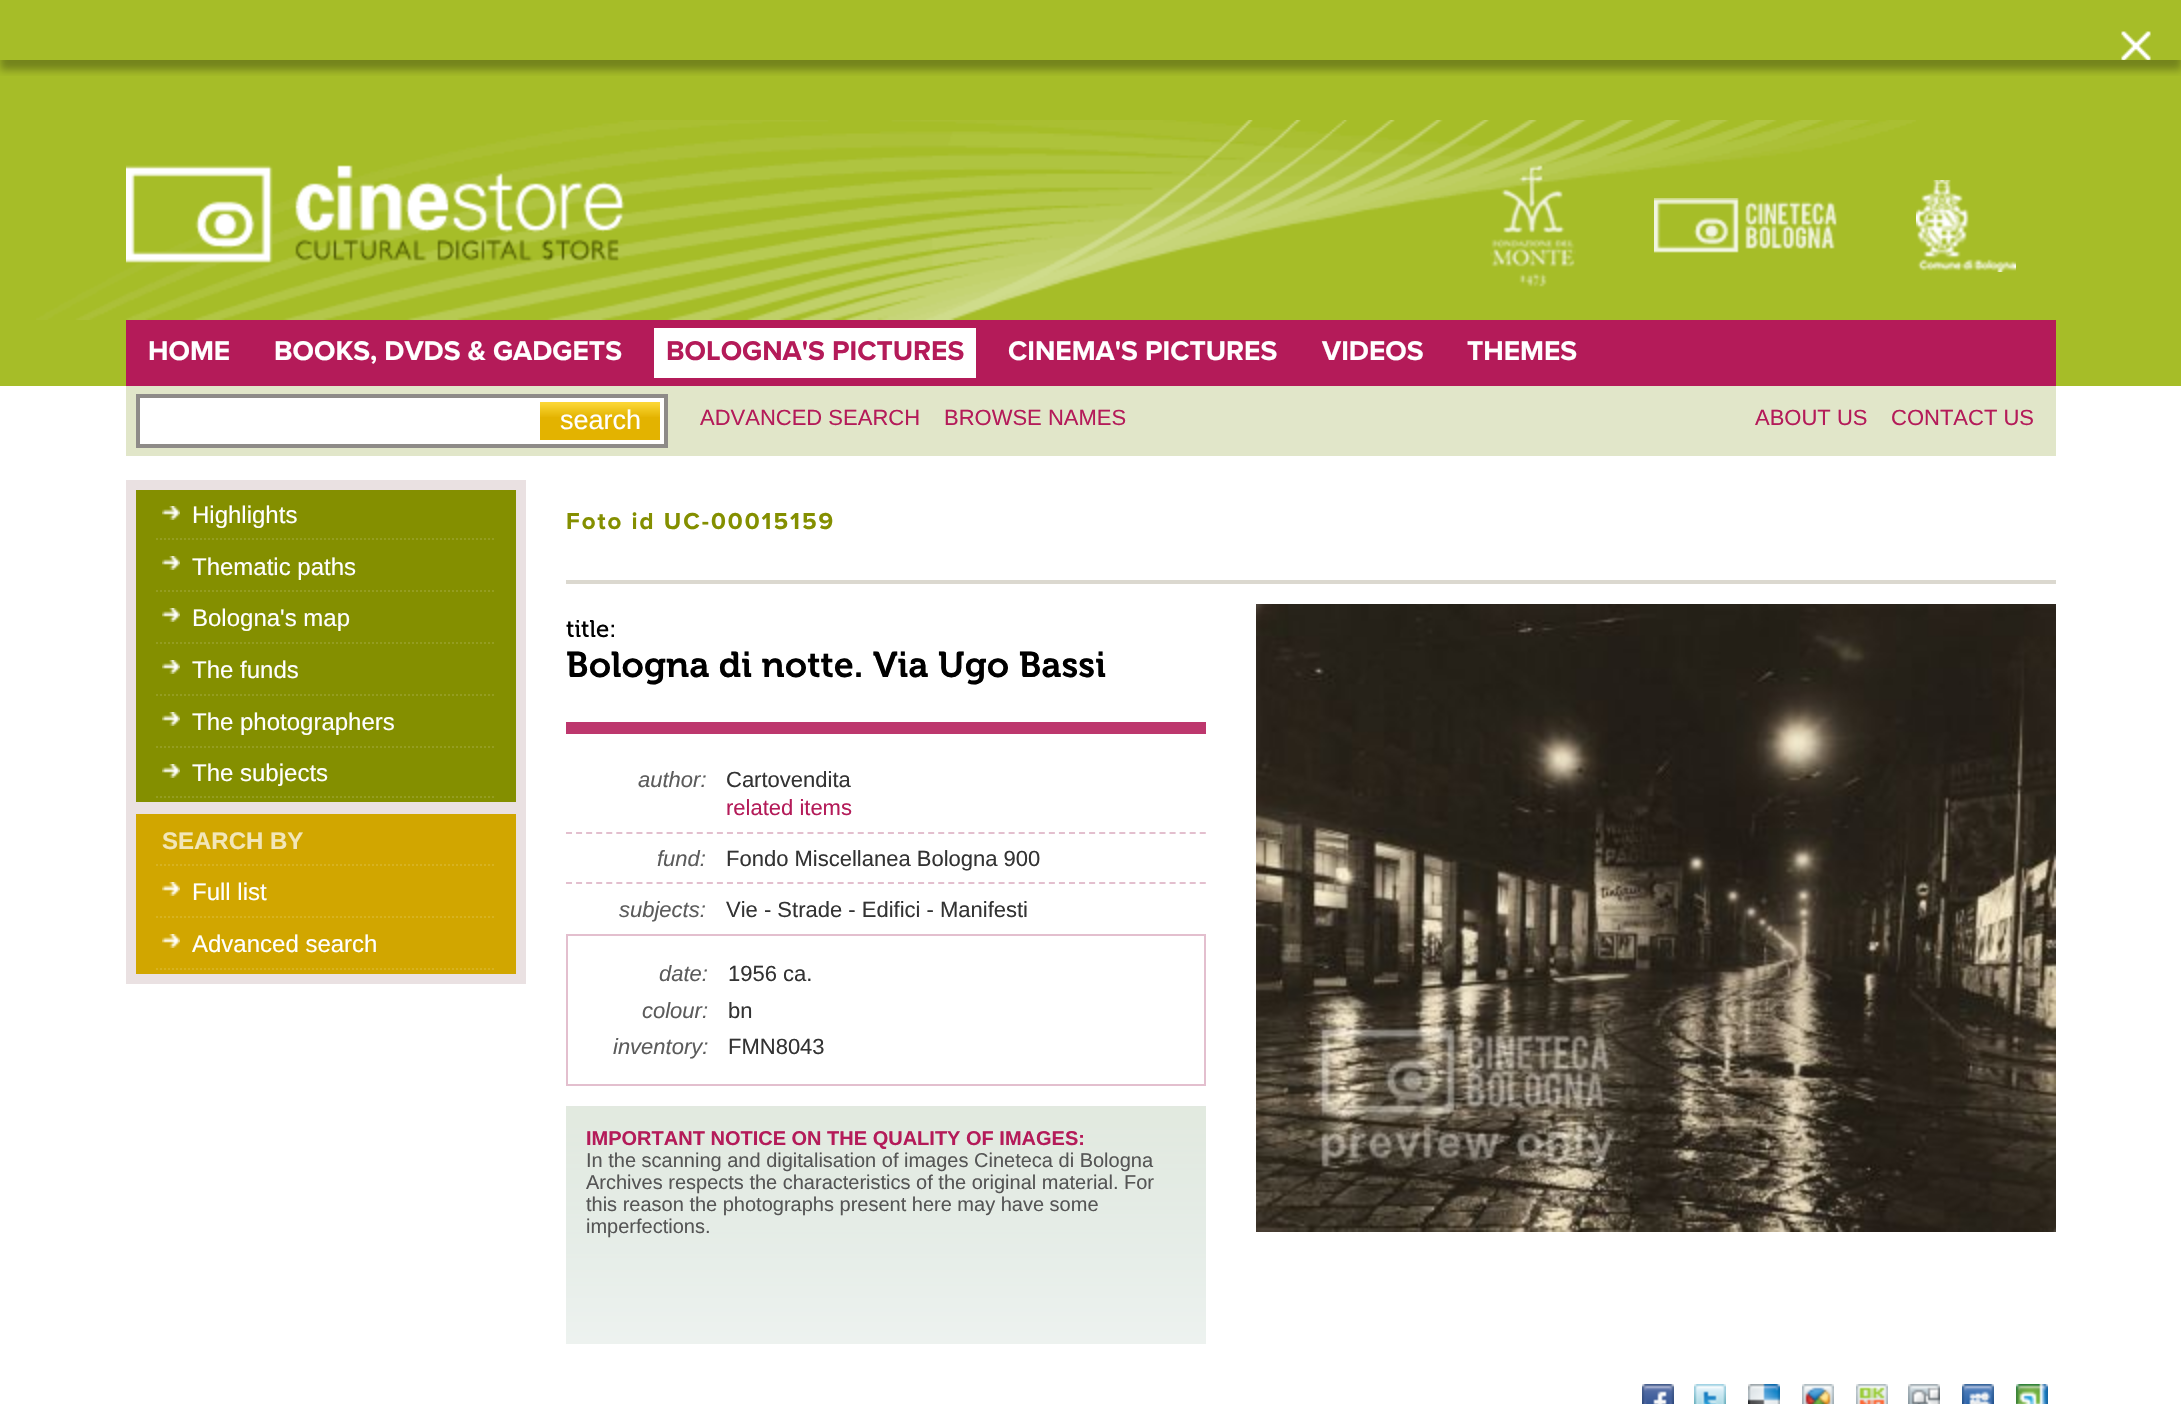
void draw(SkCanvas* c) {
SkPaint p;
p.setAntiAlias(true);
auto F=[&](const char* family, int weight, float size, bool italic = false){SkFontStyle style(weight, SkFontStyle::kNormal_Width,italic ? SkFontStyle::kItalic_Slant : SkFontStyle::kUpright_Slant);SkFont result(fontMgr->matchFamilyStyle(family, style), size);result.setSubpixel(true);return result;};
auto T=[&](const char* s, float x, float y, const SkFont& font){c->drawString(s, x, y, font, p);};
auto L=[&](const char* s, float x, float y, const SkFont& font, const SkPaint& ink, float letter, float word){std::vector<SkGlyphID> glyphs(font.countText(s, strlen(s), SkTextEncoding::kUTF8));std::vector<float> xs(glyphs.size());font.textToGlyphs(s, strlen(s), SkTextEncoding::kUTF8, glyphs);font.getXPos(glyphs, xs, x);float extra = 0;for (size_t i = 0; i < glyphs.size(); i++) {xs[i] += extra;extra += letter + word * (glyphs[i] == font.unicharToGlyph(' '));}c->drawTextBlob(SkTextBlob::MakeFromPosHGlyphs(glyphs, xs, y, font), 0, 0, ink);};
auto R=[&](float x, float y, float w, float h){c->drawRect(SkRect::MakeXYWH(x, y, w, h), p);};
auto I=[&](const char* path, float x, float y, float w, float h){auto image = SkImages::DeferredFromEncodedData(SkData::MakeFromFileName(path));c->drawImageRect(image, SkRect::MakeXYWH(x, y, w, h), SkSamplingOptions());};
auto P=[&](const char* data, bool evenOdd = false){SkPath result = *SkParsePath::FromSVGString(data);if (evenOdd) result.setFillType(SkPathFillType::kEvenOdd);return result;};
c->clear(0xffa6bd28);
c->save();
c->clipRect(SkRect::MakeXYWH(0,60,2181,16));
p.setColor(0x4d000000);
p.setMaskFilter(SkMaskFilter::MakeBlur(kNormal_SkBlurStyle, 4));
c->drawRect(SkRect::MakeXYWH(0,10,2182,60),p);
p.setMaskFilter(nullptr);
c->restore();
I("1.png",2121,31,30,29);
I("2.png",36,120,1880,200);
I("3.png",126,165,499,98);
I("4.png",1490,165,86,122);
I("5.png",1654,198,184,55);
I("6.png",1916,180,100,92);
p.setColor(0xffb41b59);
R(126,320,1930,66);
auto f1 = F("Proxima Nova",700,28);
p.setColor(0xffffffff);
T("HOME",148,360,f1);
T("BOOKS, DVDS & GADGETS",274,360,f1);
R(654,328,322,50);
p.setColor(0xffb41b59);
T("BOLOGNA'S PICTURES",666,360,f1);
p.setColor(0xffffffff);
T("CINEMA'S PICTURES",1008,360,f1);
T("VIDEOS",1322,360,f1);
T("THEMES",1467,360,f1);
R(0,386,2181,1018);
p.setColor(0xffe1e6c9);
R(126,386,1930,70);
p.setColor(0xffffffff);
c->drawRect(SkRect::MakeXYWH(138,396,528,50),p);
p.setStroke(true);
p.setStrokeWidth(4);
p.setColor(0xff8e8b88);
c->drawRect(SkRect::MakeXYWH(138,396,528,50),p);
p.setStroke(false);
p.setColor(0xffe3b300);
R(540,417,120,23);
I("7.png",540,402,120,15);
auto f2 = F("Liberation Sans",400,27);
p.setColor(0xffffffff);
T("search",560,429,f2);
auto f3 = F("Liberation Sans",400,22);
p.setColor(0xffb41b59);
T("ADVANCED SEARCH",700,425,f3);
T("BROWSE NAMES",944,425,f3);
T("ABOUT US",1755,425,f3);
T("CONTACT US",1891,425,f3);
p.setColor(0xff848f00);
c->drawRect(SkRect::MakeXYWH(131,485,390,322),p);
p.setStroke(true);
p.setStrokeWidth(10);
p.setColor(0xffeae1e2);
c->drawRect(SkRect::MakeXYWH(131,485,390,322),p);
p.setStrokeWidth(2);
p.setColor(0xff949d21);
p.setPathEffect(SkDashPathEffect::Make({{2,2}}, 0));
c->drawPath(P("M156 539h340"),p);
p.setPathEffect(nullptr);
I("8.png",162,506,18,14);
auto f4 = F("Liberation Sans",400,24);
p.setStroke(false);
p.setColor(0xffffffff);
T("Highlights",192,523,f4);
p.setStroke(true);
p.setColor(0xff949d21);
p.setPathEffect(SkDashPathEffect::Make({{2,2}}, 0));
c->drawPath(P("M156 591h340"),p);
p.setPathEffect(nullptr);
I("8.png",162,556,18,14);
p.setStroke(false);
p.setColor(0xffffffff);
T("Thematic paths",192,575,f4);
p.setStroke(true);
p.setColor(0xff949d21);
p.setPathEffect(SkDashPathEffect::Make({{2,2}}, 0));
c->drawPath(P("M156 643h340"),p);
p.setPathEffect(nullptr);
I("8.png",162,608,18,14);
p.setStroke(false);
p.setColor(0xffffffff);
T("Bologna's map",192,626,f4);
p.setStroke(true);
p.setColor(0xff949d21);
p.setPathEffect(SkDashPathEffect::Make({{2,2}}, 0));
c->drawPath(P("M156 695h340"),p);
p.setPathEffect(nullptr);
I("8.png",162,660,18,14);
p.setStroke(false);
p.setColor(0xffffffff);
T("The funds",192,678,f4);
p.setStroke(true);
p.setColor(0xff949d21);
p.setPathEffect(SkDashPathEffect::Make({{2,2}}, 0));
c->drawPath(P("M156 747h340"),p);
p.setPathEffect(nullptr);
I("8.png",162,712,18,14);
p.setStroke(false);
p.setColor(0xffffffff);
T("The photographers",192,730,f4);
p.setStroke(true);
p.setColor(0xff949d21);
p.setPathEffect(SkDashPathEffect::Make({{2,2}}, 0));
c->drawPath(P("M156 797h340"),p);
p.setPathEffect(nullptr);
I("8.png",162,764,18,14);
p.setStroke(false);
p.setColor(0xffffffff);
T("The subjects",192,781,f4);
p.setColor(0xffd1a600);
R(136,814,380,160);
p.setColor(0xffeae1e2);
R(136,812,380,2);
R(516,812,10,162);
R(136,974,390,10);
R(126,812,10,172);
p.setStroke(true);
p.setColor(0xffd7b221);
p.setPathEffect(SkDashPathEffect::Make({{2,2}}, 0));
c->drawPath(P("M156 865h340"),p);
p.setPathEffect(nullptr);
auto f5 = F("Liberation Sans",700,24);
p.setStroke(false);
p.setColor(0xfff2e6b8);
T("SEARCH BY",162,849,f5);
p.setStroke(true);
p.setColor(0xffd7b221);
p.setPathEffect(SkDashPathEffect::Make({{2,2}}, 0));
c->drawPath(P("M156 917h340"),p);
p.setPathEffect(nullptr);
I("9.png",162,882,18,14);
p.setStroke(false);
p.setColor(0xffffffff);
T("Full list",192,900,f4);
p.setStroke(true);
p.setColor(0xffd7b221);
p.setPathEffect(SkDashPathEffect::Make({{2,2}}, 0));
c->drawPath(P("M156 969h340"),p);
p.setPathEffect(nullptr);
I("9.png",162,934,18,14);
p.setStroke(false);
p.setColor(0xffffffff);
T("Advanced search",192,952,f4);
p.setColor(0xffdbd8cf);
R(566,580,1490,4);
auto f6 = F("Proxima Nova",700,24);
p.setColor(0xff848f00);
L("Foto id UC-00015159",566,529,f6,p,2,0);
p.setColor(0xffbd376d);
R(566,722,640,12);
auto f7 = F("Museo",400,24);
p.setColor(0xff000000);
T("title:",566,637,f7);
auto f8 = F("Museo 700",600,36);
T("Bologna di notte. Via Ugo Bassi",566,677,f8);
p.setStroke(true);
p.setColor(0xffe3bfce);
p.setPathEffect(SkDashPathEffect::Make({{6,4.06f}}, 0));
c->drawPath(P("M566 833h640"),p);
p.setPathEffect(nullptr);
auto f9 = F("Liberation Sans",400,22,true);
p.setStroke(false);
p.setColor(0xff5c5c5c);
T("author:",638,787,f9);
p.setColor(0xff333333);
T("Cartovendita",726,787,f3);
p.setColor(0xffb41b59);
T("related items",726,815,f3);
p.setStroke(true);
p.setColor(0xffe3bfce);
p.setPathEffect(SkDashPathEffect::Make({{6,4.06f}}, 0));
c->drawPath(P("M566 883h640"),p);
p.setPathEffect(nullptr);
p.setStroke(false);
p.setColor(0xff5c5c5c);
T("fund:",657,866,f9);
p.setColor(0xff333333);
T("Fondo Miscellanea Bologna 900",726,866,f3);
p.setColor(0xff5c5c5c);
T("subjects:",619,917,f9);
p.setColor(0xff333333);
T("Vie - Strade - Edifici - Manifesti",726,917,f3);
p.setStroke(true);
p.setColor(0xffe3bfce);
c->drawRect(SkRect::MakeXYWH(567,935,638,150),p);
p.setStroke(false);
p.setColor(0xff5c5c5c);
T("date:",659,981,f9);
p.setColor(0xff333333);
T("1956 ca.",728,981,f3);
p.setColor(0xff5c5c5c);
T("colour:",642,1018,f9);
p.setColor(0xff333333);
T("bn",728,1018,f3);
p.setColor(0xff5c5c5c);
T("inventory:",613,1054,f9);
p.setColor(0xff333333);
T("FMN8043",728,1054,f3);
I("10.png",566,1106,640,238);
auto f10 = F("Liberation Sans",700,20);
p.setColor(0xffb41b59);
T("IMPORTANT NOTICE ON THE QUALITY OF IMAGES:",586,1145,f10);
auto f11 = F("Liberation Sans",400,20);
p.setColor(0xff555555);
T("In the scanning and digitalisation of images Cineteca di Bologna",586,1167,f11);
T("Archives respects the characteristics of the original material. For",586,1189,f11);
T("this reason the photographs present here may have some",586,1211,f11);
T("imperfections.",586,1233,f11);
I("11.png",1256,604,800,628);
I("12.png",1642,1384,32,20);
I("13.png",1694,1384,32,20);
I("14.png",1748,1384,32,20);
I("15.png",1802,1384,32,20);
I("16.png",1856,1384,32,20);
I("17.png",1908,1384,32,20);
I("18.png",1962,1384,32,20);
I("19.png",2016,1384,32,20);
}
